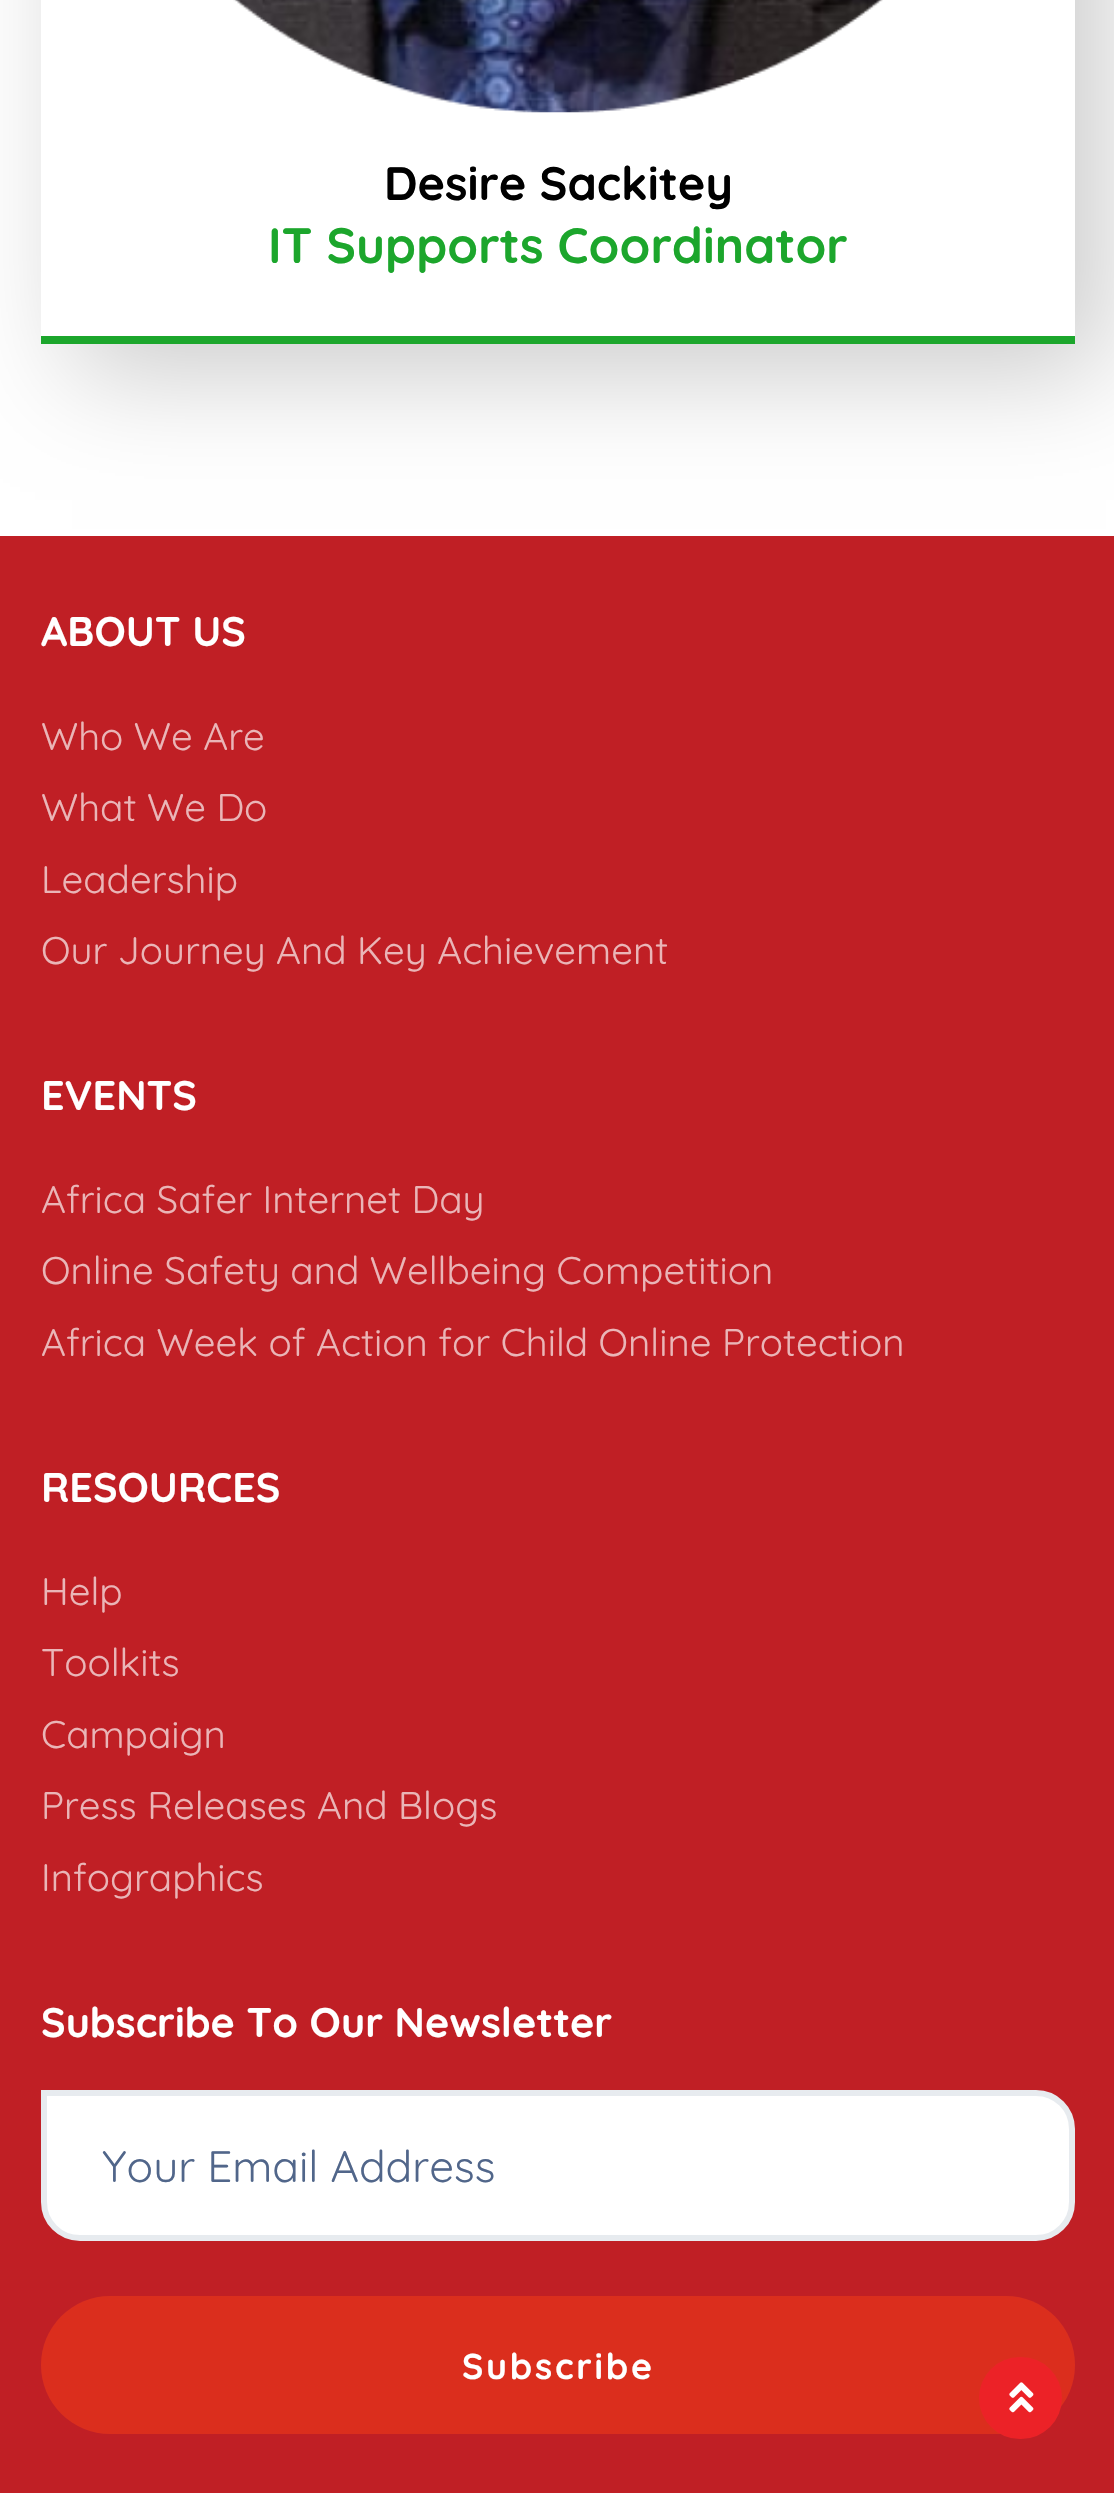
void draw(SkCanvas* c) {
SkPaint p;
p.setAntiAlias(true);
auto F=[&](const char* family, int weight, float size, bool italic = false){SkFontStyle style(weight, SkFontStyle::kNormal_Width,italic ? SkFontStyle::kItalic_Slant : SkFontStyle::kUpright_Slant);SkFont result(fontMgr->matchFamilyStyle(family, style), size);result.setSubpixel(true);return result;};
auto T=[&](const char* s, float x, float y, const SkFont& font){c->drawString(s, x, y, font, p);};
auto L=[&](const char* s, float x, float y, const SkFont& font, const SkPaint& ink, float letter, float word){std::vector<SkGlyphID> glyphs(font.countText(s, strlen(s), SkTextEncoding::kUTF8));std::vector<float> xs(glyphs.size());font.textToGlyphs(s, strlen(s), SkTextEncoding::kUTF8, glyphs);font.getXPos(glyphs, xs, x);float extra = 0;for (size_t i = 0; i < glyphs.size(); i++) {xs[i] += extra;extra += letter + word * (glyphs[i] == font.unicharToGlyph(' '));}c->drawTextBlob(SkTextBlob::MakeFromPosHGlyphs(glyphs, xs, y, font), 0, 0, ink);};
auto R=[&](float x, float y, float w, float h){c->drawRect(SkRect::MakeXYWH(x, y, w, h), p);};
auto Q=[&](float x, float y, float w, float h, float radius){c->drawRoundRect(SkRect::MakeXYWH(x, y, w, h), radius, radius, p);};
auto I=[&](const char* path, float x, float y, float w, float h){auto image = SkImages::DeferredFromEncodedData(SkData::MakeFromFileName(path));c->drawImageRect(image, SkRect::MakeXYWH(x, y, w, h), SkSamplingOptions());};
auto P=[&](const char* data, bool evenOdd = false){SkPath result = *SkParsePath::FromSVGString(data);if (evenOdd) result.setFillType(SkPathFillType::kEvenOdd);return result;};
c->clear(0xffffffff);
c->save();
c->clipPath(P("M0 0h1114v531h-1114zm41-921h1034v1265h-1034z",true),true);
p.setColor(0x33000000);
p.setMaskFilter(SkMaskFilter::MakeBlur(kNormal_SkBlurStyle, 52));
c->drawRect(SkRect::MakeXYWH(72,-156,1034,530),p);
p.setMaskFilter(nullptr);
c->restore();
p.setColor(0xff1ca62c);
R(41,336,1034,8);
I("1.png",233,0,650,113);
auto f1 = F("Quicksand",700,46.75);
p.setColor(0xff000000);
T("Desire Sackitey",384,200,f1);
auto f2 = F("Quicksand",700,49.5);
p.setColor(0xff1ca62c);
T("IT Supports Coordinator",268,263,f2);
p.setColor(0xffc01f25);
R(0,536,1114,1957);
auto f3 = F("Quicksand",700,41.25);
p.setColor(0xffffffff);
T("ABOUT US",41,646,f3);
auto f4 = F("Quicksand",400,38.5);
p.setColor(0xffeab5b7);
T("Who We Are",41,750,f4);
T("What We Do",41,821,f4);
T("Leadership",41,893,f4);
T("Our Journey And Key Achievement",41,964,f4);
p.setColor(0xffffffff);
T("EVENTS",41,1110,f3);
p.setColor(0xffeab5b7);
T("Africa Safer Internet Day",41,1213,f4);
T("Online Safety and Wellbeing Competition",41,1284,f4);
T("Africa Week of Action for Child Online Protection",41,1356,f4);
p.setColor(0xffffffff);
T("RESOURCES",41,1502,f3);
p.setColor(0xffeab5b7);
T("Help",41,1605,f4);
T("Toolkits",41,1676,f4);
T("Campaign",41,1748,f4);
T("Press Releases And Blogs",41,1819,f4);
T("Infographics",41,1891,f4);
p.setColor(0xffffffff);
T("Subscribe To Our Newsletter",41,2037,f3);
c->drawPath(P("M44 2093h992c20 0 36 16 36 36v73c0 20-16 36-36 36h-956c-20 0-36-16-36-36z"),p);
p.setStroke(true);
p.setStrokeWidth(6);
p.setColor(0xffe7ebef);
c->drawPath(P("M44 2093h992c20 0 36 16 36 36v73c0 20-16 36-36 36h-956c-20 0-36-16-36-36z"),p);
auto f5 = F("Quicksand",400,44);
p.setStroke(false);
p.setColor(0xff51668a);
T("Your Email Address",102,2182,f5);
p.setColor(0xffdb2e1d);
Q(41,2296,1034,138,69);
auto f6 = F("Quicksand",700,35.75);
p.setColor(0xffffffff);
L("Subscribe",462,2379,f6,p,2.75,0);
p.setColor(0xffec2227);
Q(979,2357,83,82,41);
I("2.png",1009,2382,25,31);
}
